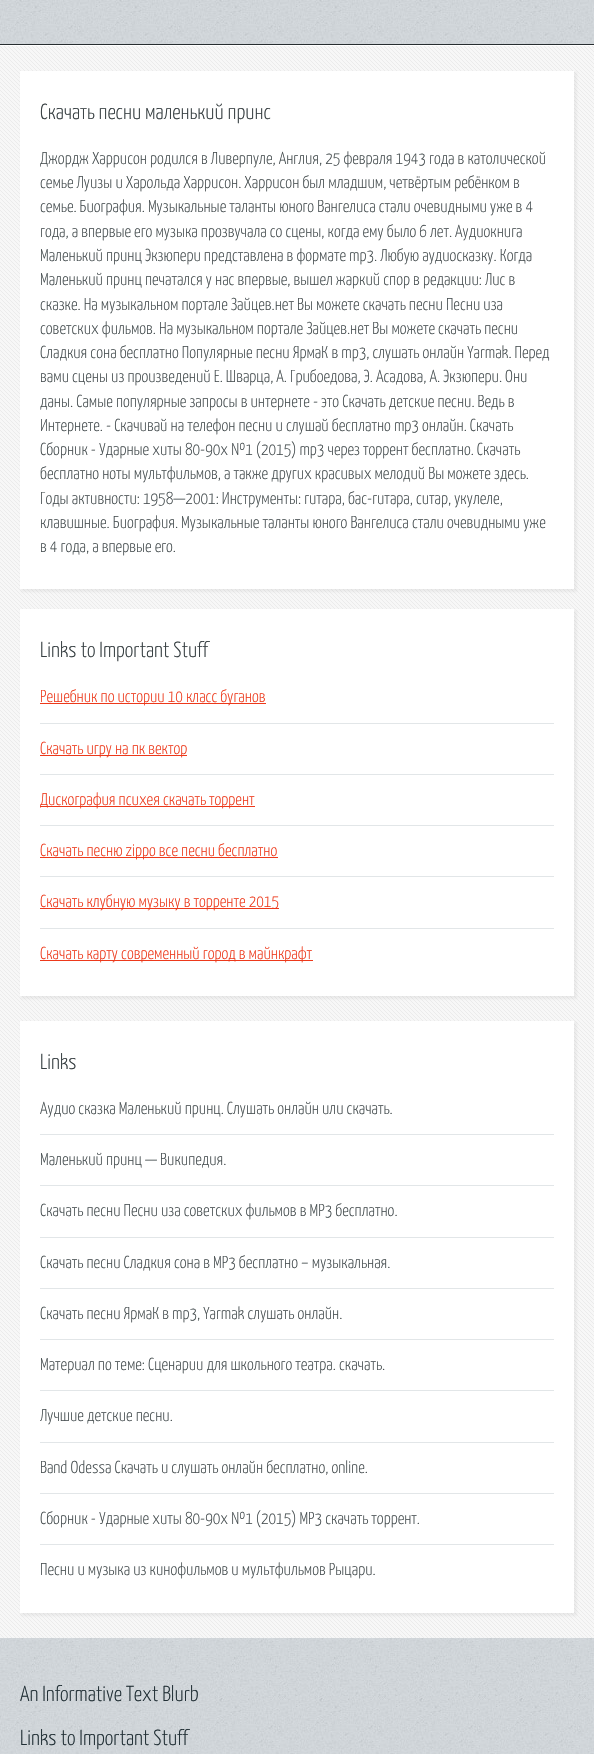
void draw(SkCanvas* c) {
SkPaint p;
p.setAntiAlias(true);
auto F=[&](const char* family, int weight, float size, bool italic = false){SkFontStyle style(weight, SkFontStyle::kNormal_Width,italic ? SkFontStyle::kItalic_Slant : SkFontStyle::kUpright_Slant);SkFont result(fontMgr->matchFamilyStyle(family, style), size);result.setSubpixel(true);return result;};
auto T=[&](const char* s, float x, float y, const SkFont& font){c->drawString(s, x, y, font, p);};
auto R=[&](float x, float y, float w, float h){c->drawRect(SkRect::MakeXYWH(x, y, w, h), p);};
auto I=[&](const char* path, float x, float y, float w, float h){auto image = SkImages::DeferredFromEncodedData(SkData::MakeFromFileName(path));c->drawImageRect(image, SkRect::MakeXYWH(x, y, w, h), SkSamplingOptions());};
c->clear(0xffffffff);
I("1.png",0,0,594,1754);
p.setColor(0xff272d30);
R(0,44,594,1);
p.setColor(0xfff7f7f7);
R(0,46,594,1592);
I("2.png",0,46,594,1592);
p.setColor(0xffffffff);
R(0,45,594,1);
p.setColor(0x1a808080);
p.setMaskFilter(SkMaskFilter::MakeBlur(kNormal_SkBlurStyle, 1));
c->drawRect(SkRect::MakeXYWH(21,72,556,520),p);
p.setMaskFilter(nullptr);
p.setColor(0xffffffff);
R(20,71,554,518);
auto f1 = F("Yanone Kaffeesatz",300,21.75);
p.setColor(0xff373f42);
T("Скачать песни маленький принс",40,119,f1);
auto f2 = F("Yanone Kaffeesatz",300,17.3);
p.setColor(0xff474f51);
T("Джордж Харрисон родился в Ливерпуле, Англия, 25 февраля 1943 года в католической",40,164,f2);
T("семье Луизы и Харольда Харрисон. Харрисон был младшим, четвёртым ребёнком в",40,188,f2);
T("семье. Биография. Музыкальные таланты юного Вангелиса стали очевидными уже в 4",40,212,f2);
T("года, а впервые его музыка прозвучала со сцены, когда ему было 6 лет. Аудиокнига",40,237,f2);
T("Маленький принц Экзюпери представлена в формате mp3. Любую аудиосказку. Когда",40,261,f2);
T("Маленький принц печатался у нас впервые, вышел жаркий спор в редакции: Лис в",40,285,f2);
T("сказке. На музыкальном портале Зайцев.нет Вы можете скачать песни Песни иза",40,310,f2);
T("советских фильмов. На музыкальном портале Зайцев.нет Вы можете скачать песни",40,334,f2);
T("Сладкия сона бесплатно Популярные песни ЯрмаК в mp3, слушать онлайн Yarmak. Перед",40,358,f2);
T("вами сцены из произведений Е. Шварца, А. Грибоедова, Э. Асадова, А. Экзюпери. Они",40,382,f2);
T("даны. Самые популярные запросы в интернете - это Скачать детские песни. Ведь в",40,407,f2);
T("Интернете. - Скачивай на телефон песни и слушай бесплатно mp3 онлайн. Скачать",40,431,f2);
T("Сборник - Ударные хиты 80-90х №1 (2015) mp3 через торрент бесплатно. Скачать",40,455,f2);
T("бесплатно ноты мультфильмов, а также других красивых мелодий Вы можете здесь.",40,479,f2);
T("Годы активности: 1958—2001: Инструменты: гитара, бас-гитара, ситар, укулеле,",40,504,f2);
T("клавишные. Биография. Музыкальные таланты юного Вангелиса стали очевидными уже",40,528,f2);
T("в 4 года, а впервые его.",40,552,f2);
p.setColor(0x1a808080);
p.setMaskFilter(SkMaskFilter::MakeBlur(kNormal_SkBlurStyle, 1));
c->drawRect(SkRect::MakeXYWH(21,610,556,389),p);
p.setMaskFilter(nullptr);
p.setColor(0xffffffff);
R(20,609,554,387);
p.setColor(0xff373f42);
T("Links to Important Stuff",40,657,f1);
p.setColor(0xffe2e6e8);
R(40,723,514,1);
p.setColor(0xffed391b);
R(40,703,226,1);
T("Решебник по истории 10 класс буганов",40,702,f2);
p.setColor(0xffe2e6e8);
R(40,774,514,1);
p.setColor(0xffed391b);
R(40,755,147,1);
T("Скачать игру на пк вектор",40,754,f2);
p.setColor(0xffe2e6e8);
R(40,825,514,1);
p.setColor(0xffed391b);
R(40,806,215,1);
T("Дискография психея скачать торрент",40,805,f2);
p.setColor(0xffe2e6e8);
R(40,876,514,1);
p.setColor(0xffed391b);
R(40,857,238,1);
T("Скачать песню zippo все песни бесплатно",40,856,f2);
p.setColor(0xffe2e6e8);
R(40,928,514,1);
p.setColor(0xffed391b);
R(40,908,239,1);
T("Скачать клубную музыку в торренте 2015",40,907,f2);
R(40,960,273,1);
T("Скачать карту современный город в майнкрафт",40,959,f2);
p.setColor(0x1a808080);
p.setMaskFilter(SkMaskFilter::MakeBlur(kNormal_SkBlurStyle, 1));
c->drawRect(SkRect::MakeXYWH(21,1022,556,594),p);
p.setMaskFilter(nullptr);
p.setColor(0xffffffff);
R(20,1021,554,592);
p.setColor(0xff373f42);
T("Links",40,1069,f1);
p.setColor(0xffe2e6e8);
R(40,1134,514,1);
p.setColor(0xff474f51);
T("Аудио сказка Маленький принц. Слушать онлайн или скачать.",40,1114,f2);
p.setColor(0xffe2e6e8);
R(40,1185,514,1);
p.setColor(0xff474f51);
T("Маленький принц — Википедия.",40,1165,f2);
p.setColor(0xffe2e6e8);
R(40,1237,514,1);
p.setColor(0xff474f51);
T("Скачать песни Песни иза советских фильмов в MP3 бесплатно.",40,1216,f2);
p.setColor(0xffe2e6e8);
R(40,1288,514,1);
p.setColor(0xff474f51);
T("Скачать песни Сладкия сона в MP3 бесплатно – музыкальная.",40,1268,f2);
p.setColor(0xffe2e6e8);
R(40,1339,514,1);
p.setColor(0xff474f51);
T("Скачать песни ЯрмаК в mp3, Yarmak слушать онлайн.",40,1319,f2);
p.setColor(0xffe2e6e8);
R(40,1390,514,1);
p.setColor(0xff474f51);
T("Материал по теме: Сценарии для школьного театра. скачать.",40,1370,f2);
p.setColor(0xffe2e6e8);
R(40,1442,514,1);
p.setColor(0xff474f51);
T("Лучшие детские песни.",40,1421,f2);
p.setColor(0xffe2e6e8);
R(40,1493,514,1);
p.setColor(0xff474f51);
T("Band Odessa Скачать и слушать онлайн бесплатно, online.",40,1473,f2);
p.setColor(0xffe2e6e8);
R(40,1544,514,1);
p.setColor(0xff474f51);
T("Сборник - Ударные хиты 80-90х №1 (2015) MP3 скачать торрент.",40,1524,f2);
T("Песни и музыка из кинофильмов и мультфильмов Рыцари.",40,1575,f2);
p.setColor(0xff212f35);
T("An Informative Text Blurb",20,1701,f1);
T("Links to Important Stuff",20,1745,f1);
}
